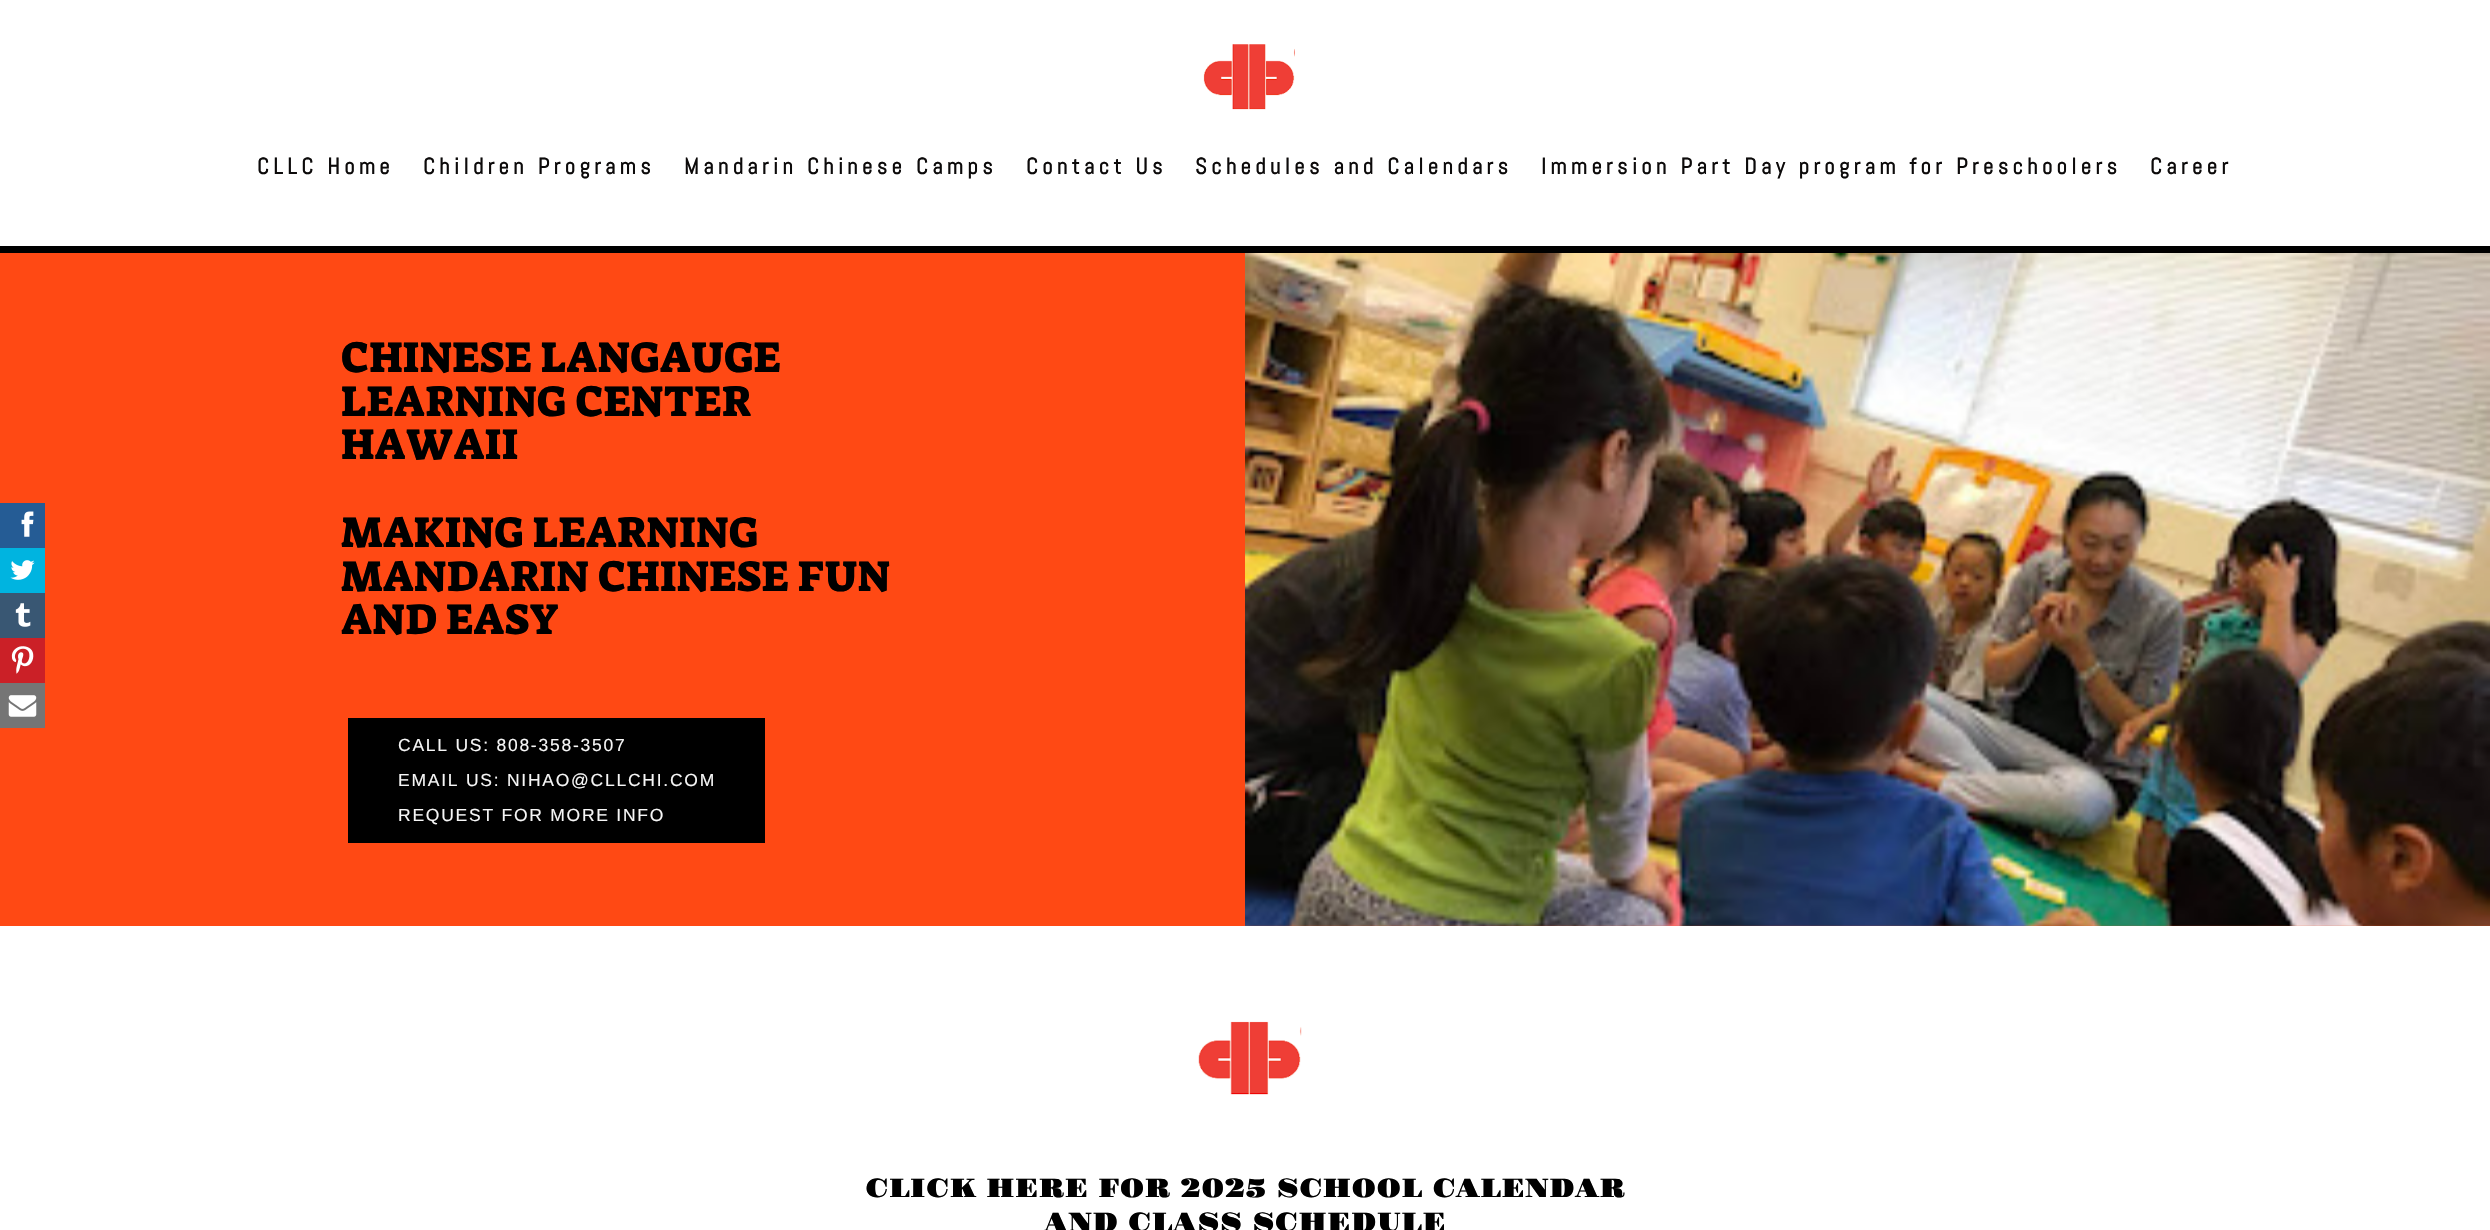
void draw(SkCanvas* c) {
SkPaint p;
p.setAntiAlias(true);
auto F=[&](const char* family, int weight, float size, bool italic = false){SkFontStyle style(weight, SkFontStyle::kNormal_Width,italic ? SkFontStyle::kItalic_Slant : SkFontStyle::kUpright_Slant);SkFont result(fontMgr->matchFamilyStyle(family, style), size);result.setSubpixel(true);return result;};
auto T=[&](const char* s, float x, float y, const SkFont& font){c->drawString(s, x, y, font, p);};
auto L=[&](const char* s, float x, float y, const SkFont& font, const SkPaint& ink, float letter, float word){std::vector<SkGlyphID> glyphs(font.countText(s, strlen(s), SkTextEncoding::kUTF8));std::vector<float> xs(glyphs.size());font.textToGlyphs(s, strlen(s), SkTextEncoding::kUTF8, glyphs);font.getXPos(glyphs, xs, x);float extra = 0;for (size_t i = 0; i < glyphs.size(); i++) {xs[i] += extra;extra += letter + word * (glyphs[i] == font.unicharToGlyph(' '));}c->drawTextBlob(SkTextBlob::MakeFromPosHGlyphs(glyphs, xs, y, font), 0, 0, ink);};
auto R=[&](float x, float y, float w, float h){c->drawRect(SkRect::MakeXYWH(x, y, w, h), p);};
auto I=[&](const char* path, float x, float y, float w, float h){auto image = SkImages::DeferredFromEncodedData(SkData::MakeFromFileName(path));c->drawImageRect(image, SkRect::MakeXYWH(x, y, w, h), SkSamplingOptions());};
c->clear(0xffffffff);
I("1.png",1203,44,92,66);
auto f1 = F("Abel",700,22.5);
p.setColor(0xff0c0a0a);
L("CLLC Home",257,174,f1,p,4.5,0);
L("Children Programs",423,174,f1,p,4.5,0);
L("Mandarin Chinese Camps",684,174,f1,p,4.5,0);
L("Contact Us",1026,174,f1,p,4.5,0);
L("Schedules and Calendars",1195,174,f1,p,4.5,0);
L("Immersion Part Day program for Preschoolers",1541,174,f1,p,4.5,0);
L("Career",2150,174,f1,p,4.5,0);
p.setColor(0xffff4914);
R(0,253,2490,673);
p.setColor(0xff255c95);
R(0,503,45,45);
I("2.png",21,511,13,26);
p.setColor(0xff00b4e0);
R(0,548,45,45);
I("3.png",10,560,25,20);
p.setColor(0xff395773);
R(0,593,45,45);
I("4.png",15,603,16,24);
p.setColor(0xffcb2027);
R(0,638,45,45);
I("5.png",11,646,23,28);
p.setColor(0xff757575);
R(0,683,45,45);
I("6.png",8,695,29,22);
p.setColor(0xff000000);
R(0,246,2490,7);
auto f2 = F("Suez One",400,43.75);
T("CHINESE LANGAUGE",341,372,f2);
T("LEARNING CENTER",341,416,f2);
T("HAWAII",341,459,f2);
T("MAKING LEARNING",341,547,f2);
T("MANDARIN CHINESE FUN",341,591,f2);
T("AND EASY",341,634,f2);
R(348,718,417,125);
auto f3 = F("Liberation Sans",400,17.5);
p.setColor(0xfff6f6f6);
L("CALL US: 808-358-3507",398,751,f3,p,1.75,0);
L("EMAIL US: NIHAO@CLLCHI.COM",398,786,f3,p,1.75,0);
L("REQUEST FOR MORE INFO",398,821,f3,p,1.75,0);
I("7.png",1245,253,1245,673);
I("8.png",1198,1021,104,74);
auto f4 = F("Gravitas One",400,26.25);
p.setColor(0xff000000);
T("CLICK HERE FOR 2025 SCHOOL CALENDAR",865,1197,f4);
T("AND CLASS SCHEDULE",1044,1231,f4);
}
